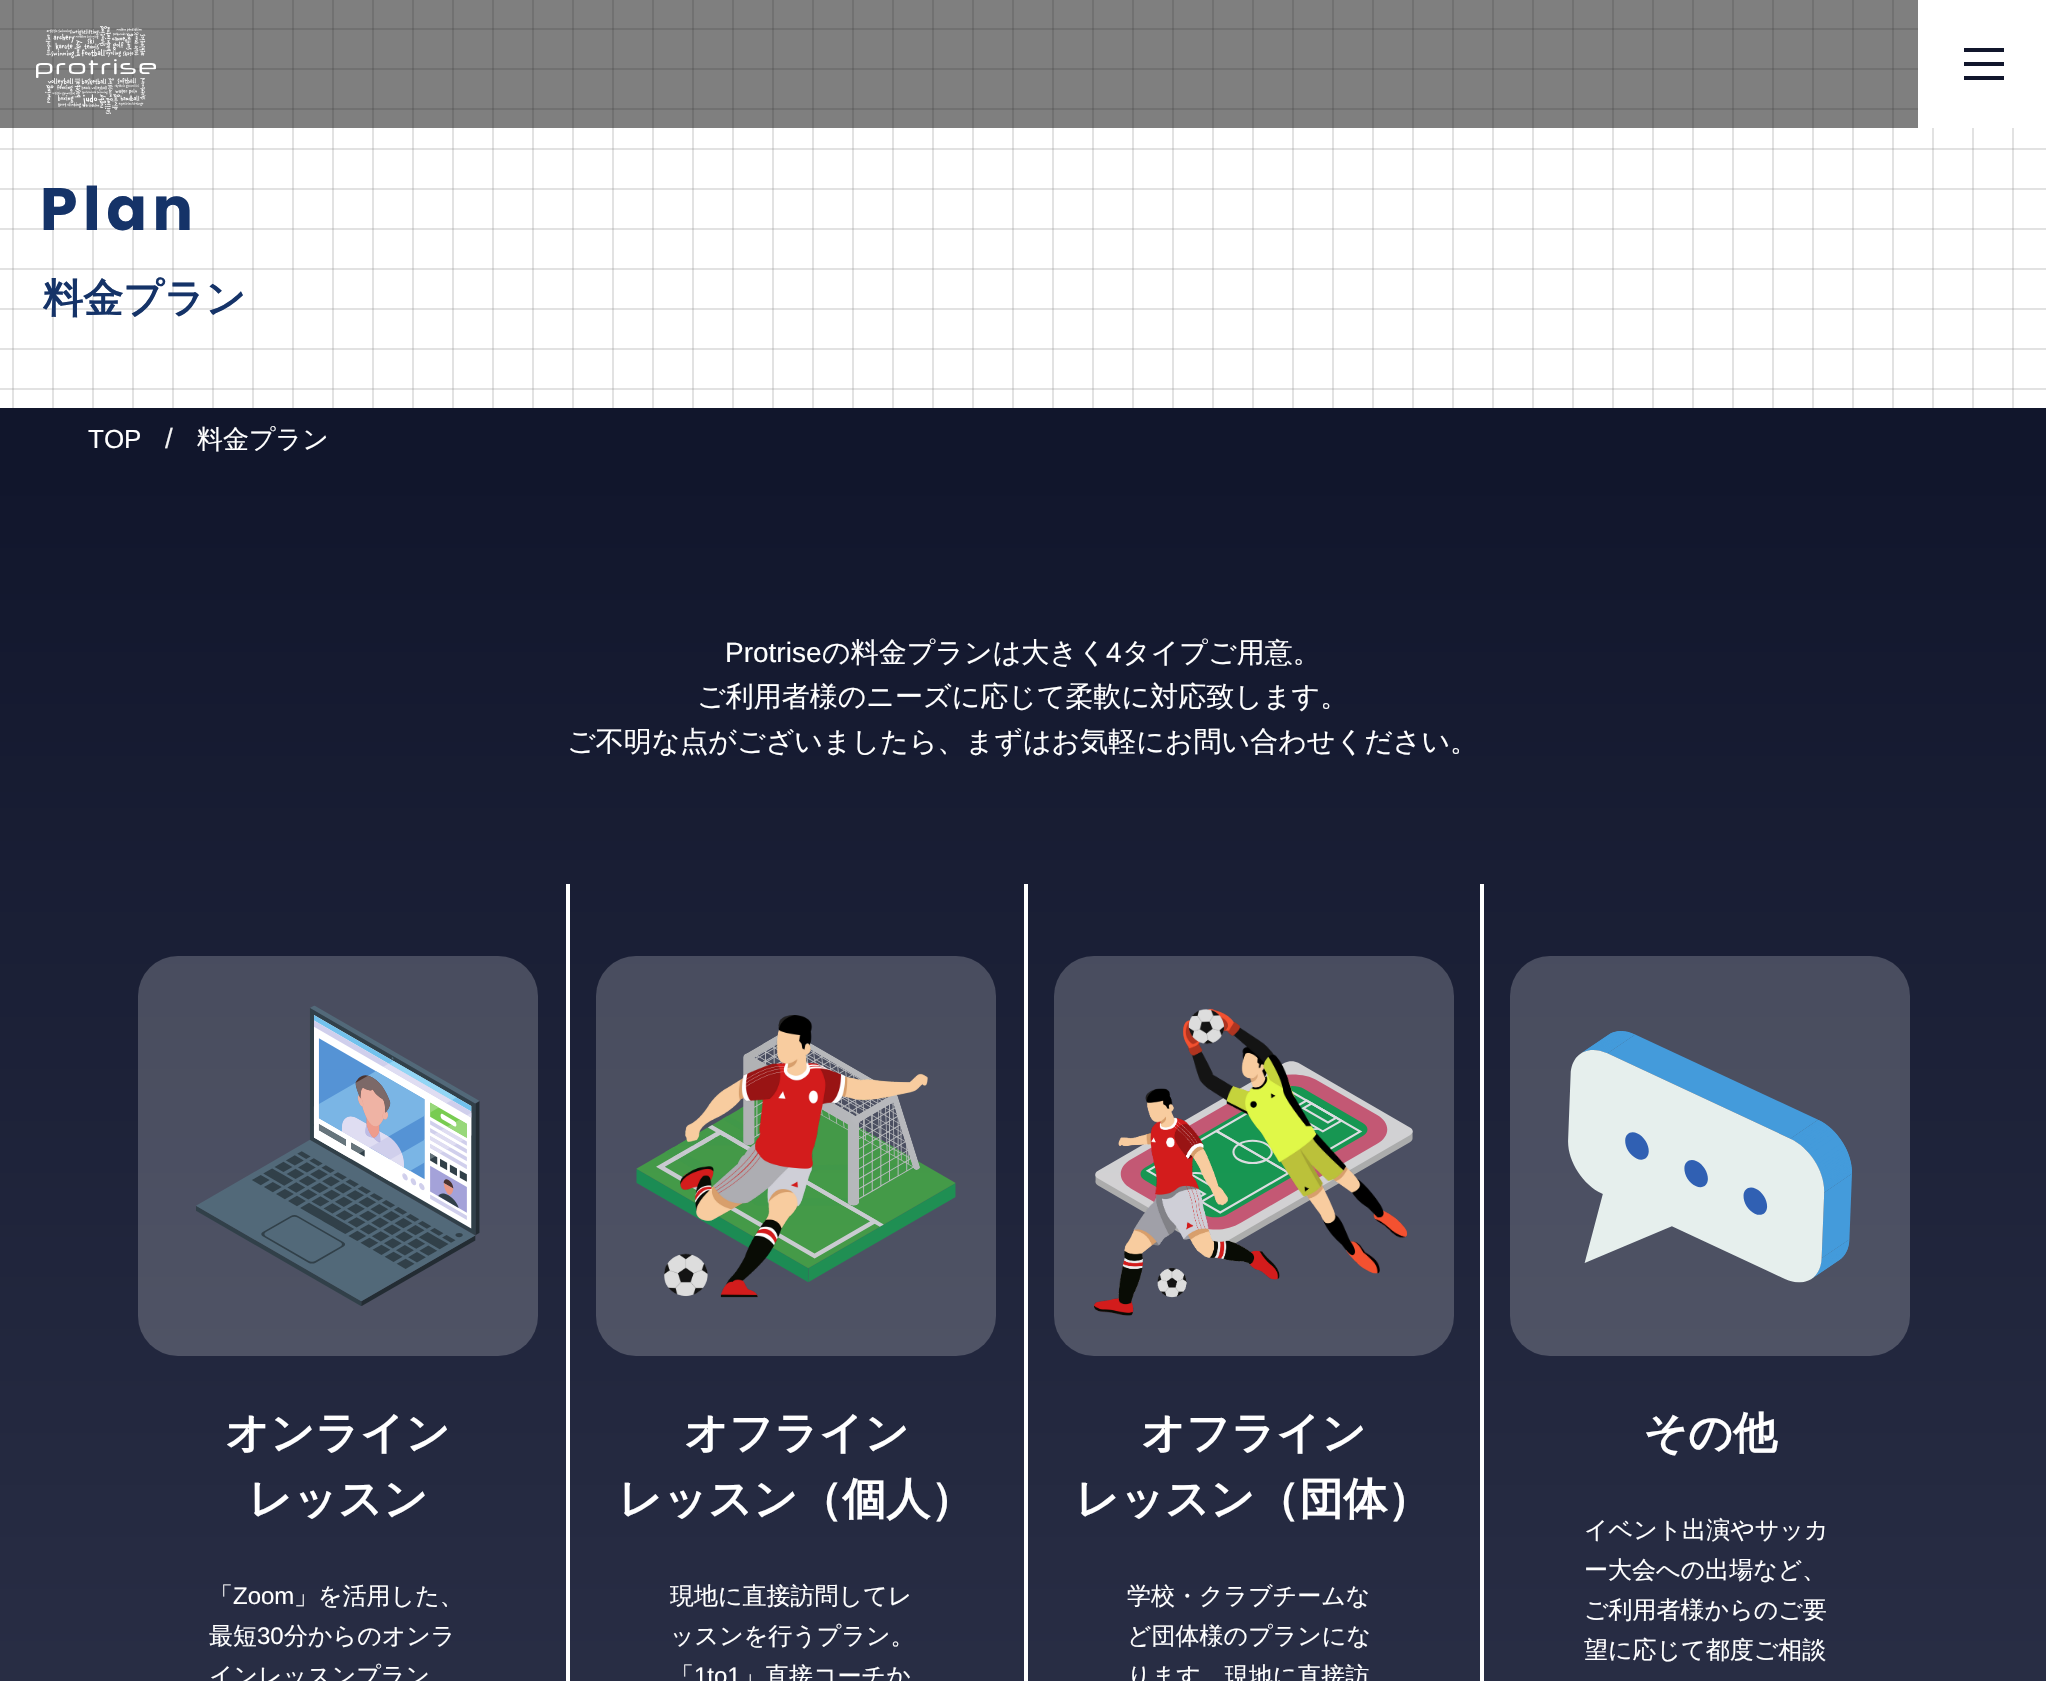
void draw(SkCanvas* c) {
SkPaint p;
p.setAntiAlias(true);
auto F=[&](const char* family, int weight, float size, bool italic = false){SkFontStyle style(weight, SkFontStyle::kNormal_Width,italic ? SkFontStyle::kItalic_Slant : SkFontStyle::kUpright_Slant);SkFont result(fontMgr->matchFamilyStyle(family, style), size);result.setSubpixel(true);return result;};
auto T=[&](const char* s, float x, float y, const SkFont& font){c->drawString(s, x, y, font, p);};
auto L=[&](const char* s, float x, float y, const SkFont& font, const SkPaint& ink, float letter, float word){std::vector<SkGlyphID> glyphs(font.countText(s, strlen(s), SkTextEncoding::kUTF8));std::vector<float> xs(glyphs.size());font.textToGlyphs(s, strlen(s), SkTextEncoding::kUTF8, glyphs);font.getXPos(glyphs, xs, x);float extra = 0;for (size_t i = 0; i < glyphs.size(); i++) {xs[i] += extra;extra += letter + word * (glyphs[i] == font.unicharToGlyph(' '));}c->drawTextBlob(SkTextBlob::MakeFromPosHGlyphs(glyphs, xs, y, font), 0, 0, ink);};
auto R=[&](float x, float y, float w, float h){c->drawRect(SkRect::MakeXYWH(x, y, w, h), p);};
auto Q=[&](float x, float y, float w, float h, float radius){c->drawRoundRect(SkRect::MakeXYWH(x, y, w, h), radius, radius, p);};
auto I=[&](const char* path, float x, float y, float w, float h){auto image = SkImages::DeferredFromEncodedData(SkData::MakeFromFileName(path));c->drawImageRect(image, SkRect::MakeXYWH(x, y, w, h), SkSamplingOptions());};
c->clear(0xffffffff);
I("2.png",12,0,2002,408);
p.setColor(0x33707070);
R(0,28,1918,2);
R(0,68,1918,2);
R(0,108,1918,2);
p.setColor(0x80000000);
R(0,0,1918,128);
I("1.png",36,26,120,88);
p.setColor(0xffffffff);
R(1932,0,82,128);
p.setColor(0xff11162c);
R(1964,48,40,4);
R(1964,62,40,4);
R(1964,76,40,4);
p.setColor(0x33707070);
R(0,148,2046,2);
R(0,188,2046,2);
R(0,228,2046,2);
R(0,268,2046,2);
R(0,308,2046,2);
R(0,348,2046,2);
R(0,388,2046,2);
auto f1 = F("Poppins",700,60);
p.setColor(0xff153368);
L("Plan",40,230,f1,p,5.5,0);
auto f2 = F("WenQuanYi Zen Hei",700,40);
T("料金プラン",43,312,f2);
p.setColor(0xff11162c);
R(0,408,2046,62);
auto f3 = F("Liberation Sans",400,26);
p.setColor(0xffffffff);
T("TOP",88,448,f3);
auto f4 = F("Liberation Sans",400,28);
p.setColor(0xfff2f2f2);
T("/",165,448,f4);
auto f5 = F("WenQuanYi Zen Hei",500,26);
p.setColor(0xffffffff);
T("料金プラン",197,448,f5);
{
const SkColor colors[] = {0xff11162c,0xff383d55};
const float stops[] = {0,1};
const SkPoint ends[] = {{1023,470}, {1023,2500}};
p.setShader(SkGradientShader::MakeLinear(ends, colors, stops, 2, SkTileMode::kClamp));
p.setAlpha(255);
}
R(0,470,2046,1211);
p.setShader(nullptr);
p.setColor(0xffffffff);
T("Protrise",725,662,f4);
auto f6 = F("WenQuanYi Zen Hei",500,28);
T("の料金プランは大きく",822,662,f6);
T("4",1106,662,f4);
T("タイプご用意。",1122,662,f6);
T("ご利用者様のニーズに応じて柔軟に対応致します。",697,706,f6);
T("ご不明な点がございましたら、まずはお気軽にお問い合わせください。",567,751,f6);
p.setColor(0x33ffffff);
Q(138,956,400,400,40);
I("3.png",196,1005,284,301);
auto f7 = F("WenQuanYi Zen Hei",700,44);
p.setColor(0xffffffff);
T("オンライン",225,1448,f7);
T("レッスン",248,1514,f7);
auto f8 = F("WenQuanYi Zen Hei",500,24);
T("「",209,1604,f8);
auto f9 = F("Liberation Sans",400,24);
T("Zoom",233,1604,f9);
T("」を活用した、",294,1604,f8);
T("最短",209,1644,f8);
T("30",257,1644,f9);
T("分からのオンラ",284,1644,f8);
T("インレッスンプラン",209,1684,f8);
R(566,884,4,797);
p.setColor(0x33ffffff);
Q(596,956,400,400,40);
I("4.png",636,1015,320,283);
p.setColor(0xffffffff);
T("オフライン",684,1448,f7);
T("レッスン（個人）",618,1514,f7);
T("現地に直接訪問してレ",670,1604,f8);
T("ッスンを行うプラン。",670,1644,f8);
T("「",670,1684,f8);
T("1to1",694,1684,f9);
T("」直接コーチか",741,1684,f8);
R(1024,884,4,797);
p.setColor(0x33ffffff);
Q(1054,956,400,400,40);
I("5.png",1094,1008,319,308);
p.setColor(0xffffffff);
T("オフライン",1141,1448,f7);
T("レッスン（団体）",1075,1514,f7);
T("学校・クラブチームな",1127,1604,f8);
T("ど団体様のプランにな",1127,1644,f8);
T("ります。現地に直接訪",1127,1684,f8);
R(1480,884,4,797);
p.setColor(0x33ffffff);
Q(1510,956,400,400,40);
I("6.png",1568,1031,284,252);
p.setColor(0xffffffff);
T("その他",1643,1448,f7);
T("イベント出演やサッカ",1584,1538,f8);
T("ー大会への出場など、",1584,1578,f8);
T("ご利用者様からのご要",1584,1618,f8);
T("望に応じて都度ご相談",1584,1658,f8);
}
